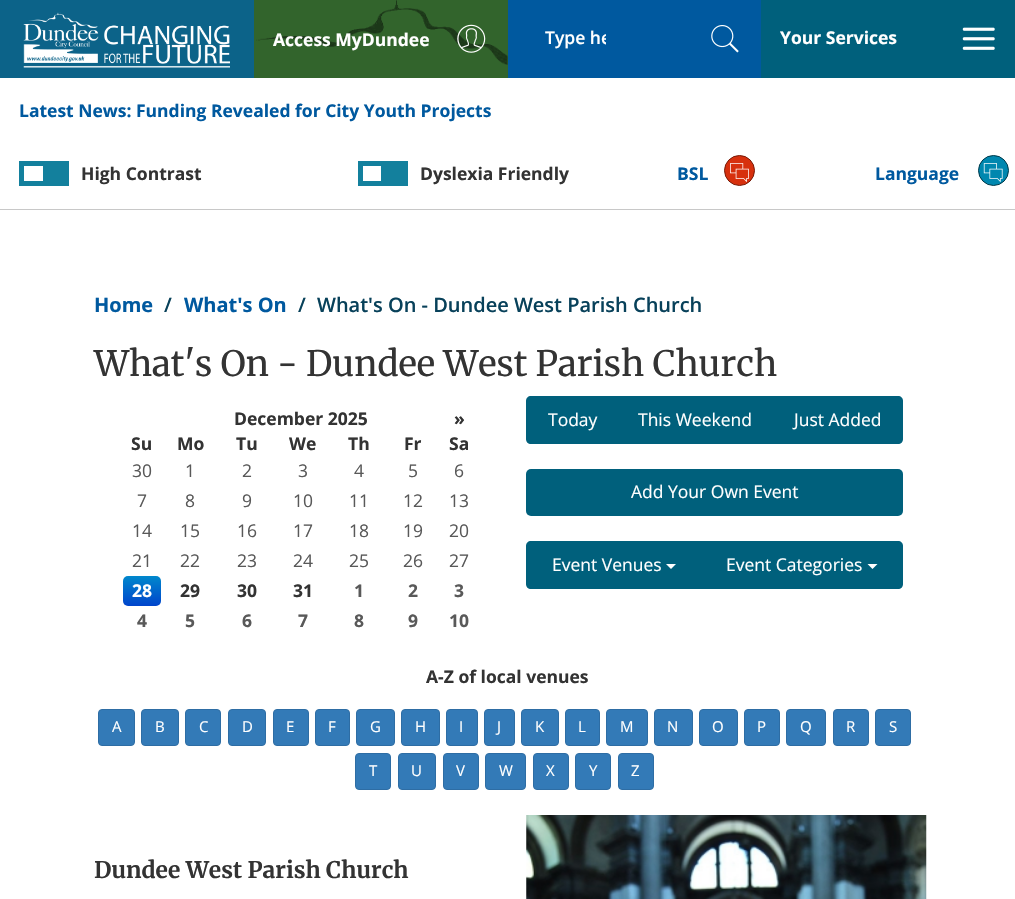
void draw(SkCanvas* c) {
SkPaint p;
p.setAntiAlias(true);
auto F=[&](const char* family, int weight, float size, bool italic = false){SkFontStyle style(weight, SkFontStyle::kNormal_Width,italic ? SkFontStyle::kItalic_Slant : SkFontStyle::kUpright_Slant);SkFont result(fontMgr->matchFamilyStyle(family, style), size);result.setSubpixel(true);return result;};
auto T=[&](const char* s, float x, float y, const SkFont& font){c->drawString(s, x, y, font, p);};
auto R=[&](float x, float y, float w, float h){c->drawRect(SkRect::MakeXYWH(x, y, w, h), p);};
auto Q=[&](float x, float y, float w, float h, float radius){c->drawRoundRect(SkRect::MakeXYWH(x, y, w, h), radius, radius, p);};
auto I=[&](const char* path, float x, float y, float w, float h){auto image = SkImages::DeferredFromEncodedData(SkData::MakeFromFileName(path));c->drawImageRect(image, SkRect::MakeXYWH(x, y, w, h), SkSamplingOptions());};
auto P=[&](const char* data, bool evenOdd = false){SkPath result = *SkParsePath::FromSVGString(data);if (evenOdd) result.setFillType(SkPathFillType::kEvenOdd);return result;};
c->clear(0xffffffff);
p.setColor(0xffc8c8c8);
R(0,209,1015,1);
p.setColor(0xff0c6389);
R(0,0,254,78);
I("1.png",23,12,207,56);
p.setColor(0xff32642c);
R(254,0,254,78);
I("2.png",256,0,252,65);
auto f1 = F("Open Sans",700,17.5);
p.setColor(0xffffffff);
T("Access MyDundee",273,46,f1);
I("3.png",457,24,29,29);
p.setColor(0xff00599f);
R(508,0,253,78);
c->save();
c->clipRect(SkRect::MakeXYWH(545,25,61,25));
auto f2 = F("Open Sans",600,17.5);
p.setColor(0xffffffff);
T("Type he",545,44,f2);
c->restore();
I("4.png",711,25,28,28);
p.setColor(0xff00607c);
R(761,0,254,78);
p.setColor(0xffffffff);
T("Your Services",780,44,f1);
I("5.png",962,27,33,23);
p.setColor(0xff00599f);
T("Latest News: Funding Revealed for City Youth Projects",19,117,f1);
p.setColor(0xff13809d);
R(19,161,50,25);
p.setColor(0xffffffff);
R(24,166,19,15);
p.setColor(0xff333333);
T("High Contrast",81,180,f1);
p.setColor(0xff13809d);
R(358,161,50,25);
p.setColor(0xffffffff);
R(363,166,18,15);
p.setColor(0xff333333);
T("Dyslexia Friendly",420,180,f1);
p.setColor(0xff00599f);
T("BSL",677,180,f1);
p.setColor(0xffd7300d);
c->drawCircle(739.5,170.5,15,p);
p.setStroke(true);
p.setStrokeWidth(1);
p.setColor(0xff771a07);
c->drawCircle(739.5,170.5,15,p);
I("6.png",730,163,19,19);
p.setStroke(false);
p.setColor(0xff00599f);
T("Language",875,180,f1);
p.setColor(0xff0087af);
c->drawCircle(993.5,170.5,15,p);
p.setStroke(true);
p.setColor(0xff003949);
c->drawCircle(993.5,170.5,15,p);
I("7.png",983,163,20,19);
auto f3 = F("Open Sans",700,20);
p.setStroke(false);
p.setColor(0xff00599f);
T("Home",94,312,f3);
auto f4 = F("Open Sans",600,20);
p.setColor(0xff08415a);
T("/",164,312,f4);
p.setColor(0xff00599f);
T("What's On",184,312,f3);
p.setColor(0xff08415a);
T("/",298,312,f4);
T("What's On - Dundee West Parish Church",317,312,f4);
auto f5 = F("Merriweather",400,35);
p.setColor(0xff333333);
T("What's On - Dundee West Parish Church",94,376,f5);
T("December 2025",234,425,f1);
T("»",454,425,f1);
T("Su",131,450,f1);
T("Mo",177,450,f1);
T("Tu",236,450,f1);
T("We",289,450,f1);
T("Th",348,450,f1);
T("Fr",404,450,f1);
T("Sa",449,450,f1);
auto f6 = F("Open Sans",400,17.5);
p.setColor(0xff595959);
T("30",132,477,f6);
T("1",185,477,f6);
T("2",242,477,f6);
T("3",298,477,f6);
T("4",354,477,f6);
T("5",408,477,f6);
T("6",454,477,f6);
T("7",137,507,f6);
T("8",185,507,f6);
T("9",242,507,f6);
T("10",293,507,f6);
T("11",349,507,f6);
T("12",403,507,f6);
T("13",449,507,f6);
T("14",132,537,f6);
T("15",180,537,f6);
T("16",237,537,f6);
T("17",293,537,f6);
T("18",349,537,f6);
T("19",403,537,f6);
T("20",449,537,f6);
T("21",132,567,f6);
T("22",180,567,f6);
T("23",237,567,f6);
T("24",293,567,f6);
T("25",349,567,f6);
T("26",403,567,f6);
T("27",449,567,f6);
{
const SkColor colors[] = {0xff0088cc,0xff0044cc};
const float stops[] = {0,1};
const SkPoint ends[] = {{142,576}, {142,606}};
p.setShader(SkGradientShader::MakeLinear(ends, colors, stops, 2, SkTileMode::kClamp));
p.setAlpha(255);
}
Q(123,576,38,30,5);
p.setShader(nullptr);
p.setColor(0xffffffff);
T("28",132,597,f1);
p.setColor(0xff333333);
T("29",180,597,f1);
T("30",237,597,f1);
T("31",293,597,f1);
p.setColor(0xff595959);
T("1",354,597,f1);
T("2",408,597,f1);
T("3",454,597,f1);
T("4",137,627,f1);
T("5",185,627,f1);
T("6",242,627,f1);
T("7",298,627,f1);
T("8",354,627,f1);
T("9",408,627,f1);
T("10",449,627,f1);
p.setColor(0xff00607c);
c->drawPath(P("M531 396h88v48h-88c-3 0-5-2-5-5v-38c0-3 2-5 5-5z"),p);
p.setColor(0xffffffff);
T("Today",548,426,f6);
p.setColor(0xff00607c);
R(619,396,154,48);
p.setColor(0xffffffff);
T("This Weekend",638,426,f6);
p.setColor(0xff00607c);
c->drawPath(P("M773 396h125c3 0 5 2 5 5v38c0 3-2 5-5 5h-125z"),p);
p.setColor(0xffffffff);
T("Just Added",794,426,f6);
p.setColor(0xff00607c);
Q(526,469,377,47,5);
p.setColor(0xffffffff);
T("Add Your Own Event",631,498,f6);
p.setColor(0xff00607c);
c->drawPath(P("M531 541h170v48h-170c-3 0-5-2-5-5v-38c0-3 2-5 5-5z"),p);
p.setColor(0xffffffff);
T("Event Venues",552,571,f6);
c->drawPath(P("M666 564h10l-5 5z"),p);
p.setColor(0xff00607c);
c->drawPath(P("M700 541h198c3 0 5 2 5 5v38c0 3-2 5-5 5h-198z"),p);
p.setColor(0xffffffff);
T("Event Categories",726,571,f6);
c->drawPath(P("M867.5 564h10l-5 5z"),p);
p.setColor(0xff333333);
T("A-Z of local venues",426,683,f1);
p.setColor(0xff337ab7);
c->drawRoundRect(SkRect::MakeXYWH(98.5,709.5,36,36),3.5,3.5,p);
p.setStroke(true);
p.setColor(0xff2e6da4);
c->drawRoundRect(SkRect::MakeXYWH(98.5,709.5,36,36),3.5,3.5,p);
auto f7 = F("Open Sans",400,15);
p.setStroke(false);
p.setColor(0xffffffff);
T("A",112,732,f7);
p.setColor(0xff337ab7);
c->drawRoundRect(SkRect::MakeXYWH(141.5,709.5,37,36),3.5,3.5,p);
p.setStroke(true);
p.setColor(0xff2e6da4);
c->drawRoundRect(SkRect::MakeXYWH(141.5,709.5,37,36),3.5,3.5,p);
p.setStroke(false);
p.setColor(0xffffffff);
T("B",155,732,f7);
p.setColor(0xff337ab7);
c->drawRoundRect(SkRect::MakeXYWH(185.5,709.5,35,36),3.5,3.5,p);
p.setStroke(true);
p.setColor(0xff2e6da4);
c->drawRoundRect(SkRect::MakeXYWH(185.5,709.5,35,36),3.5,3.5,p);
p.setStroke(false);
p.setColor(0xffffffff);
T("C",199,732,f7);
p.setColor(0xff337ab7);
c->drawRoundRect(SkRect::MakeXYWH(228.5,709.5,37,36),3.5,3.5,p);
p.setStroke(true);
p.setColor(0xff2e6da4);
c->drawRoundRect(SkRect::MakeXYWH(228.5,709.5,37,36),3.5,3.5,p);
p.setStroke(false);
p.setColor(0xffffffff);
T("D",242,732,f7);
p.setColor(0xff337ab7);
c->drawRoundRect(SkRect::MakeXYWH(273.5,709.5,35,36),3.5,3.5,p);
p.setStroke(true);
p.setColor(0xff2e6da4);
c->drawRoundRect(SkRect::MakeXYWH(273.5,709.5,35,36),3.5,3.5,p);
p.setStroke(false);
p.setColor(0xffffffff);
T("E",286,732,f7);
p.setColor(0xff337ab7);
c->drawRoundRect(SkRect::MakeXYWH(315.5,709.5,34,36),3.5,3.5,p);
p.setStroke(true);
p.setColor(0xff2e6da4);
c->drawRoundRect(SkRect::MakeXYWH(315.5,709.5,34,36),3.5,3.5,p);
p.setStroke(false);
p.setColor(0xffffffff);
T("F",328,732,f7);
p.setColor(0xff337ab7);
c->drawRoundRect(SkRect::MakeXYWH(356.5,709.5,38,36),3.5,3.5,p);
p.setStroke(true);
p.setColor(0xff2e6da4);
c->drawRoundRect(SkRect::MakeXYWH(356.5,709.5,38,36),3.5,3.5,p);
p.setStroke(false);
p.setColor(0xffffffff);
T("G",370,732,f7);
p.setColor(0xff337ab7);
c->drawRoundRect(SkRect::MakeXYWH(401.5,709.5,38,36),3.5,3.5,p);
p.setStroke(true);
p.setColor(0xff2e6da4);
c->drawRoundRect(SkRect::MakeXYWH(401.5,709.5,38,36),3.5,3.5,p);
p.setStroke(false);
p.setColor(0xffffffff);
T("H",415,732,f7);
p.setColor(0xff337ab7);
c->drawRoundRect(SkRect::MakeXYWH(446.5,709.5,31,36),3.5,3.5,p);
p.setStroke(true);
p.setColor(0xff2e6da4);
c->drawRoundRect(SkRect::MakeXYWH(446.5,709.5,31,36),3.5,3.5,p);
p.setStroke(false);
p.setColor(0xffffffff);
T("I",459,732,f7);
p.setColor(0xff337ab7);
c->drawRoundRect(SkRect::MakeXYWH(484.5,709.5,30,36),3.5,3.5,p);
p.setStroke(true);
p.setColor(0xff2e6da4);
c->drawRoundRect(SkRect::MakeXYWH(484.5,709.5,30,36),3.5,3.5,p);
p.setStroke(false);
p.setColor(0xffffffff);
T("J",497,732,f7);
p.setColor(0xff337ab7);
c->drawRoundRect(SkRect::MakeXYWH(521.5,709.5,37,36),3.5,3.5,p);
p.setStroke(true);
p.setColor(0xff2e6da4);
c->drawRoundRect(SkRect::MakeXYWH(521.5,709.5,37,36),3.5,3.5,p);
p.setStroke(false);
p.setColor(0xffffffff);
T("K",535,732,f7);
p.setColor(0xff337ab7);
c->drawRoundRect(SkRect::MakeXYWH(565.5,709.5,34,36),3.5,3.5,p);
p.setStroke(true);
p.setColor(0xff2e6da4);
c->drawRoundRect(SkRect::MakeXYWH(565.5,709.5,34,36),3.5,3.5,p);
p.setStroke(false);
p.setColor(0xffffffff);
T("L",578,732,f7);
p.setColor(0xff337ab7);
c->drawRoundRect(SkRect::MakeXYWH(606.5,709.5,41,36),3.5,3.5,p);
p.setStroke(true);
p.setColor(0xff2e6da4);
c->drawRoundRect(SkRect::MakeXYWH(606.5,709.5,41,36),3.5,3.5,p);
p.setStroke(false);
p.setColor(0xffffffff);
T("M",620,732,f7);
p.setColor(0xff337ab7);
c->drawRoundRect(SkRect::MakeXYWH(654.5,709.5,38,36),3.5,3.5,p);
p.setStroke(true);
p.setColor(0xff2e6da4);
c->drawRoundRect(SkRect::MakeXYWH(654.5,709.5,38,36),3.5,3.5,p);
p.setStroke(false);
p.setColor(0xffffffff);
T("N",667,732,f7);
p.setColor(0xff337ab7);
c->drawRoundRect(SkRect::MakeXYWH(699.5,709.5,38,36),3.5,3.5,p);
p.setStroke(true);
p.setColor(0xff2e6da4);
c->drawRoundRect(SkRect::MakeXYWH(699.5,709.5,38,36),3.5,3.5,p);
p.setStroke(false);
p.setColor(0xffffffff);
T("O",712,732,f7);
p.setColor(0xff337ab7);
c->drawRoundRect(SkRect::MakeXYWH(744.5,709.5,35,36),3.5,3.5,p);
p.setStroke(true);
p.setColor(0xff2e6da4);
c->drawRoundRect(SkRect::MakeXYWH(744.5,709.5,35,36),3.5,3.5,p);
p.setStroke(false);
p.setColor(0xffffffff);
T("P",757,732,f7);
p.setColor(0xff337ab7);
c->drawRoundRect(SkRect::MakeXYWH(786.5,709.5,39,36),3.5,3.5,p);
p.setStroke(true);
p.setColor(0xff2e6da4);
c->drawRoundRect(SkRect::MakeXYWH(786.5,709.5,39,36),3.5,3.5,p);
p.setStroke(false);
p.setColor(0xffffffff);
T("Q",800,732,f7);
p.setColor(0xff337ab7);
c->drawRoundRect(SkRect::MakeXYWH(833.5,709.5,35,36),3.5,3.5,p);
p.setStroke(true);
p.setColor(0xff2e6da4);
c->drawRoundRect(SkRect::MakeXYWH(833.5,709.5,35,36),3.5,3.5,p);
p.setStroke(false);
p.setColor(0xffffffff);
T("R",846,732,f7);
p.setColor(0xff337ab7);
c->drawRoundRect(SkRect::MakeXYWH(875.5,709.5,35,36),3.5,3.5,p);
p.setStroke(true);
p.setColor(0xff2e6da4);
c->drawRoundRect(SkRect::MakeXYWH(875.5,709.5,35,36),3.5,3.5,p);
p.setStroke(false);
p.setColor(0xffffffff);
T("S",889,732,f7);
p.setColor(0xff337ab7);
c->drawRoundRect(SkRect::MakeXYWH(355.5,753.5,35,36),3.5,3.5,p);
p.setStroke(true);
p.setColor(0xff2e6da4);
c->drawRoundRect(SkRect::MakeXYWH(355.5,753.5,35,36),3.5,3.5,p);
p.setStroke(false);
p.setColor(0xffffffff);
T("T",369,776,f7);
p.setColor(0xff337ab7);
c->drawRoundRect(SkRect::MakeXYWH(398.5,753.5,37,36),3.5,3.5,p);
p.setStroke(true);
p.setColor(0xff2e6da4);
c->drawRoundRect(SkRect::MakeXYWH(398.5,753.5,37,36),3.5,3.5,p);
p.setStroke(false);
p.setColor(0xffffffff);
T("U",411,776,f7);
p.setColor(0xff337ab7);
c->drawRoundRect(SkRect::MakeXYWH(443.5,753.5,35,36),3.5,3.5,p);
p.setStroke(true);
p.setColor(0xff2e6da4);
c->drawRoundRect(SkRect::MakeXYWH(443.5,753.5,35,36),3.5,3.5,p);
p.setStroke(false);
p.setColor(0xffffffff);
T("V",456,776,f7);
p.setColor(0xff337ab7);
c->drawRoundRect(SkRect::MakeXYWH(485.5,753.5,40,36),3.5,3.5,p);
p.setStroke(true);
p.setColor(0xff2e6da4);
c->drawRoundRect(SkRect::MakeXYWH(485.5,753.5,40,36),3.5,3.5,p);
p.setStroke(false);
p.setColor(0xffffffff);
T("W",499,776,f7);
p.setColor(0xff337ab7);
c->drawRoundRect(SkRect::MakeXYWH(533.5,753.5,35,36),3.5,3.5,p);
p.setStroke(true);
p.setColor(0xff2e6da4);
c->drawRoundRect(SkRect::MakeXYWH(533.5,753.5,35,36),3.5,3.5,p);
p.setStroke(false);
p.setColor(0xffffffff);
T("X",546,776,f7);
p.setColor(0xff337ab7);
c->drawRoundRect(SkRect::MakeXYWH(575.5,753.5,35,36),3.5,3.5,p);
p.setStroke(true);
p.setColor(0xff2e6da4);
c->drawRoundRect(SkRect::MakeXYWH(575.5,753.5,35,36),3.5,3.5,p);
p.setStroke(false);
p.setColor(0xffffffff);
T("Y",589,776,f7);
p.setColor(0xff337ab7);
c->drawRoundRect(SkRect::MakeXYWH(618.5,753.5,35,36),3.5,3.5,p);
p.setStroke(true);
p.setColor(0xff2e6da4);
c->drawRoundRect(SkRect::MakeXYWH(618.5,753.5,35,36),3.5,3.5,p);
p.setStroke(false);
p.setColor(0xffffffff);
T("Z",631,776,f7);
auto f8 = F("Merriweather",700,22.8);
p.setColor(0xff333333);
T("Dundee West Parish Church",94,878,f8);
I("8.png",526,815,401,84);
}
